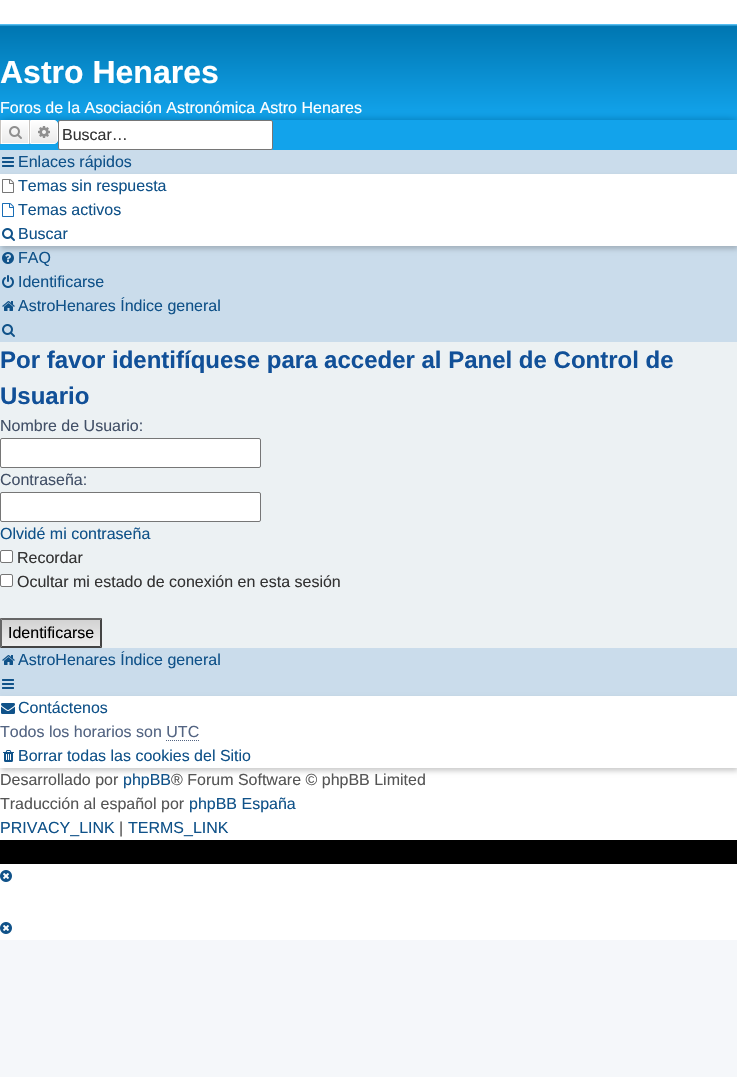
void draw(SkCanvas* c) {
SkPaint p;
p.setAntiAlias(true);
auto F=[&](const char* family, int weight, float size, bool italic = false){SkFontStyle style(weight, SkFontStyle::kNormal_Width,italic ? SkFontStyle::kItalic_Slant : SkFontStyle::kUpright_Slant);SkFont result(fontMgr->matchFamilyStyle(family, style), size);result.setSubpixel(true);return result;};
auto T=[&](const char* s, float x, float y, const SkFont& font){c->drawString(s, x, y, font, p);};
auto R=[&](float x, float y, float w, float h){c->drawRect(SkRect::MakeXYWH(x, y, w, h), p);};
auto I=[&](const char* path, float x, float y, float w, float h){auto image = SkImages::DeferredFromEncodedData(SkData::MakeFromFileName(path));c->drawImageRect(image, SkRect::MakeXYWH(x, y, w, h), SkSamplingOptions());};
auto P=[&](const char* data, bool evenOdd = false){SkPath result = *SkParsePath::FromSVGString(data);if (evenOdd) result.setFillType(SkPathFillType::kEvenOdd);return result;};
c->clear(0xfff5f7fa);
p.setColor(0xffffffff);
R(0,0,737,940);
{
const SkColor colors[] = {0xff6aceff,0xff0076b1,0xff12a3eb,0xff12a3eb};
const float stops[] = {0,.02,.73,1};
const SkPoint ends[] = {{369,24}, {369,150}};
p.setShader(SkGradientShader::MakeLinear(ends, colors, stops, 4, SkTileMode::kClamp));
p.setAlpha(255);
}
R(0,24,737,126);
auto f1 = F("Liberation Sans",700,32);
p.setShader(nullptr);
p.setColor(0xffffffff);
T("Astro Henares",0,83,f1);
c->save();
c->clipRect(SkRect::MakeXYWH(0,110,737,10));
p.setColor(0xff0075b0);
p.setMaskFilter(SkMaskFilter::MakeBlur(kNormal_SkBlurStyle, 5));
c->drawRect(SkRect::MakeXYWH(0,120,737,30),p);
p.setMaskFilter(nullptr);
c->restore();
auto f2 = F("Liberation Sans",400,16);
p.setColor(0xffffffff);
T("Foros de la Asociación Astronómica Astro Henares",0,113,f2);
{
const SkColor colors[] = {0xffffffff,0xffe9e9e9};
const float stops[] = {0,1};
const SkPoint ends[] = {{15,120}, {15,144}};
p.setShader(SkGradientShader::MakeLinear(ends, colors, stops, 2, SkTileMode::kClamp));
p.setAlpha(255);
}
R(2,121,26,22);
p.setStroke(true);
p.setStrokeWidth(1);
p.setShader(nullptr);
p.setColor(0xffffffff);
c->drawRect(SkRect::MakeXYWH(1.5,120.5,27,23),p);
p.setStroke(false);
p.setColor(0xffc7c3bf);
R(29,120,1,24);
R(0,120,1,24);
I("1.png",9,126,13,13);
{
const SkColor colors[] = {0xffffffff,0xffe9e9e9};
const float stops[] = {0,1};
const SkPoint ends[] = {{44,120}, {44,144}};
p.setShader(SkGradientShader::MakeLinear(ends, colors, stops, 2, SkTileMode::kClamp));
p.setAlpha(255);
}
c->drawPath(P("M30.5 120.5h23.5c2 0 3.5 1.5 3.5 3.5v16c0 2-1.5 3.5-3.5 3.5h-23.5z"),p);
p.setStroke(true);
p.setShader(nullptr);
p.setColor(0xffffffff);
c->drawPath(P("M30.5 120.5h23.5c2 0 3.5 1.5 3.5 3.5v16c0 2-1.5 3.5-3.5 3.5h-23.5z"),p);
I("2.png",38,126,12,12);
p.setStroke(false);
c->drawRoundRect(SkRect::MakeXYWH(58.5,120.5,214,29),1.5,1.5,p);
p.setStroke(true);
p.setColor(0xff767676);
c->drawRoundRect(SkRect::MakeXYWH(58.5,120.5,214,29),1.5,1.5,p);
p.setStroke(false);
p.setColor(0xff333333);
T("Buscar…",62,140,f2);
p.setColor(0xffcadceb);
R(0,150,737,192);
I("3.png",2,157,12,10);
p.setColor(0x33000000);
p.setMaskFilter(SkMaskFilter::MakeBlur(kNormal_SkBlurStyle, 2.5));
c->drawRect(SkRect::MakeXYWH(1,177,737,72),p);
p.setMaskFilter(nullptr);
p.setColor(0xff105289);
T("Enlaces rápidos",18,167,f2);
p.setColor(0xffffffff);
R(0,174,737,72);
I("4.png",2,179,12,14);
p.setColor(0xff105289);
T("Temas sin respuesta",18,191,f2);
I("5.png",2,203,12,14);
T("Temas activos",18,215,f2);
I("6.png",2,228,13,13);
T("Buscar",18,239,f2);
I("7.png",2,252,12,12);
T("FAQ",18,263,f2);
I("8.png",2,275,12,13);
T("Identificarse",18,287,f2);
I("9.png",2,301,13,10);
T("AstroHenares Índice general",18,311,f2);
I("10.png",2,324,13,13);
p.setColor(0xffecf1f3);
R(0,342,737,306);
auto f3 = F("Liberation Sans",700,24);
p.setColor(0xff115098);
T("Por favor identifíquese para acceder al Panel de Control de",0,368,f3);
T("Usuario",0,404,f3);
p.setColor(0xff425067);
T("Nombre de Usuario:",0,431,f2);
p.setColor(0xffffffff);
c->drawRoundRect(SkRect::MakeXYWH(.5,438.5,260,29),1.5,1.5,p);
p.setStroke(true);
p.setColor(0xff767676);
c->drawRoundRect(SkRect::MakeXYWH(.5,438.5,260,29),1.5,1.5,p);
p.setStroke(false);
p.setColor(0xff425067);
T("Contraseña:",0,485,f2);
p.setColor(0xffffffff);
c->drawRoundRect(SkRect::MakeXYWH(.5,492.5,260,29),1.5,1.5,p);
p.setStroke(true);
p.setColor(0xff767676);
c->drawRoundRect(SkRect::MakeXYWH(.5,492.5,260,29),1.5,1.5,p);
p.setStroke(false);
p.setColor(0xff105289);
T("Olvidé mi contraseña",0,539,f2);
p.setColor(0xffffffff);
c->drawRoundRect(SkRect::MakeXYWH(.5,550.5,12,12),1.5,1.5,p);
p.setStroke(true);
p.setColor(0xff767676);
c->drawRoundRect(SkRect::MakeXYWH(.5,550.5,12,12),1.5,1.5,p);
p.setStroke(false);
p.setColor(0xff333333);
T("Recordar",17,563,f2);
p.setColor(0xffffffff);
c->drawRoundRect(SkRect::MakeXYWH(.5,574.5,12,12),1.5,1.5,p);
p.setStroke(true);
p.setColor(0xff767676);
c->drawRoundRect(SkRect::MakeXYWH(.5,574.5,12,12),1.5,1.5,p);
p.setStroke(false);
p.setColor(0xff333333);
T("Ocultar mi estado de conexión en esta sesión",17,587,f2);
{
const SkColor colors[] = {0xffd2d2d2,0xffefefef};
const float stops[] = {0,1};
const SkPoint ends[] = {{51,620}, {51,646}};
p.setShader(SkGradientShader::MakeLinear(ends, colors, stops, 2, SkTileMode::kClamp));
p.setAlpha(255);
}
R(2,620,98,26);
p.setShader(nullptr);
p.setColor(0xff666666);
c->drawPath(P("M0 618h102l-2 2h-98z"),p);
p.setColor(0xff444444);
c->drawPath(P("M102 618v30l-2-2v-26z"),p);
c->drawPath(P("M102 648h-102l2-2h98z"),p);
p.setColor(0xff666666);
c->drawPath(P("M0 648v-30l2 2v26z"),p);
p.setColor(0xff000000);
T("Identificarse",8,638,f2);
p.setColor(0xffcadceb);
R(0,648,737,48);
I("9.png",2,655,13,10);
p.setColor(0xff105289);
T("AstroHenares Índice general",18,665,f2);
I("3.png",2,679,12,10);
p.setColor(0x33000000);
p.setMaskFilter(SkMaskFilter::MakeBlur(kNormal_SkBlurStyle, 2.5));
c->drawRect(SkRect::MakeXYWH(1,699,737,72),p);
p.setMaskFilter(nullptr);
p.setColor(0xffffffff);
R(0,696,737,72);
I("11.png",1,703,14,11);
p.setColor(0xff105289);
T("Contáctenos",18,713,f2);
p.setColor(0xff536482);
T("Todos los horarios son UTC",0,737,f2);
p.setStroke(true);
p.setPathEffect(SkDashPathEffect::Make({{1,1}}, 0));
c->drawPath(P("M166 740.5h33"),p);
p.setPathEffect(nullptr);
I("12.png",3,750,11,12);
p.setStroke(false);
p.setColor(0xff105289);
T("Borrar todas las cookies del Sitio",18,761,f2);
p.setColor(0xff555555);
T("Desarrollado por",0,785,f2);
p.setColor(0xff105289);
T("phpBB",123,785,f2);
p.setColor(0xff555555);
T("® Forum Software © phpBB Limited",171,785,f2);
T("Traducción al español por",0,809,f2);
p.setColor(0xff105289);
T("phpBB España",189,809,f2);
T("PRIVACY_LINK",0,833,f2);
p.setColor(0xff555555);
T("|",119,833,f2);
p.setColor(0xff105289);
T("TERMS_LINK",128,833,f2);
p.setColor(0xff000000);
R(0,840,737,24);
I("13.png",0,870,12,12);
I("13.png",0,922,12,12);
}
